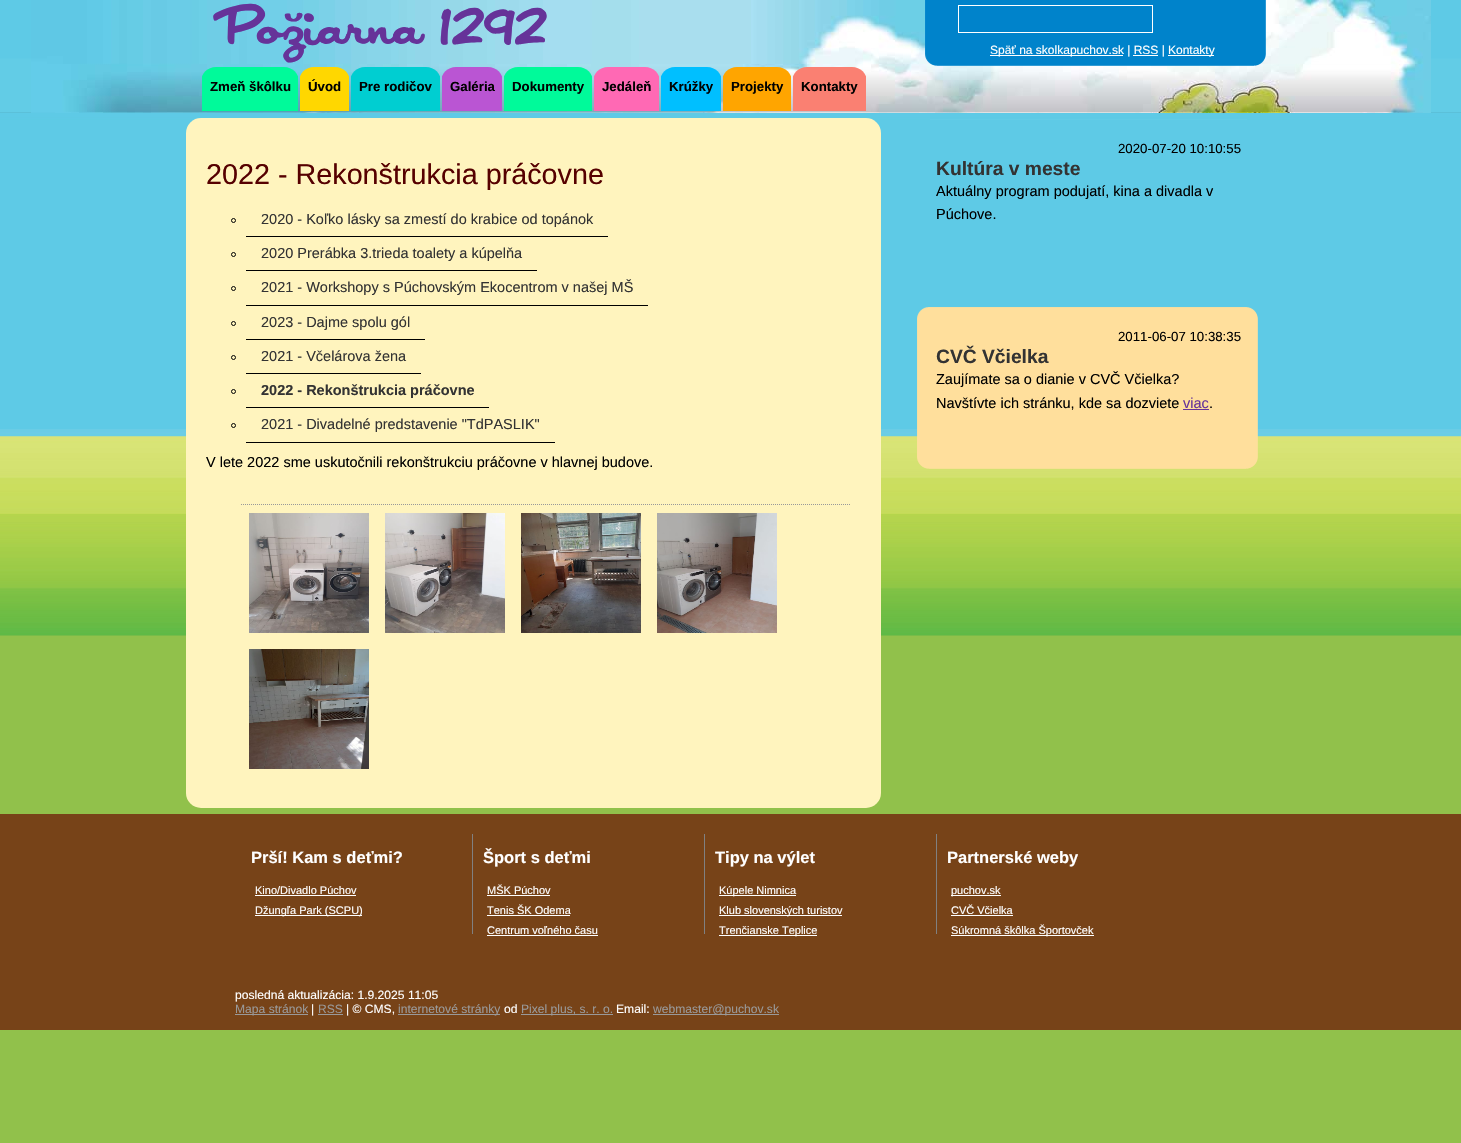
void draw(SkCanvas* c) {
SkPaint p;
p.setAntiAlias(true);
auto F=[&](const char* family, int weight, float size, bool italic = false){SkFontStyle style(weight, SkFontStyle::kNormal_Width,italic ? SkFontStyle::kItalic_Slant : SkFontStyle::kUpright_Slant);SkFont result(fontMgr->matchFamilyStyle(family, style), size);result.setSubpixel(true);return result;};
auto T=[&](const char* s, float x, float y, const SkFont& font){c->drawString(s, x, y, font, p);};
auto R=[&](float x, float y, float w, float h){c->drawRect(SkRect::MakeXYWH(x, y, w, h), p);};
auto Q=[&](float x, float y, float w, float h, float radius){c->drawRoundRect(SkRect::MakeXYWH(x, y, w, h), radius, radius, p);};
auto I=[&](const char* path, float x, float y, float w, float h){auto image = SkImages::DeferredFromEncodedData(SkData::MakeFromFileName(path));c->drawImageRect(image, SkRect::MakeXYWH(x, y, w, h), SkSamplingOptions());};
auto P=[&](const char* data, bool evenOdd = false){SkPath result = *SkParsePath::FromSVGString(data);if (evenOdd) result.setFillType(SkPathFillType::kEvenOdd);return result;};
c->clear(0xff91c14b);
I("1.png",0,0,1461,636);
I("2.png",31,0,1400,113);
auto f1 = F("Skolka",500,60);
p.setColor(0xff663399);
T("Požiarna 1292",216,44,f1);
I("3.png",925,0,341,66);
p.setStroke(true);
p.setStrokeWidth(1);
p.setColor(0xffffffff);
c->drawRect(SkRect::MakeXYWH(958.5,5.5,194,27),p);
p.setStroke(false);
R(990,55,133,1);
auto f2 = F("Liberation Sans",400,12);
T("Späť na skolkapuchov.sk | RSS |",990,54,f2);
R(1168,55,46,1);
T("Kontakty",1168,54,f2);
R(1133,55,25,1);
c->save();
c->clipPath(P("M216 67h68c8.5 0 15 6.5 15 15v29h-98v-29c0-8.5 6.5-15 15-15z"),true);
p.setColor(0xff00fa9a);
R(202,67,96,44);
c->restore();
auto f3 = F("Liberation Sans",700,13.25);
p.setColor(0xff000000);
T("Zmeň škôlku",210,91,f3);
c->save();
c->clipPath(P("M314 67h21c8.5 0 15 6.5 15 15v29h-51v-29c0-8.5 6.5-15 15-15z"),true);
p.setColor(0xffffd700);
R(300,67,49,44);
c->restore();
p.setColor(0xff000000);
T("Úvod",308,91,f3);
c->save();
c->clipPath(P("M365 67h61c8.5 0 15 6.5 15 15v29h-91v-29c0-8.5 6.5-15 15-15z"),true);
p.setColor(0xff00ced1);
R(351,67,89,44);
c->restore();
p.setColor(0xff000000);
T("Pre rodičov",359,91,f3);
c->save();
c->clipPath(P("M456 67h32c8.5 0 15 6.5 15 15v29h-62v-29c0-8.5 6.5-15 15-15z"),true);
p.setColor(0xffba55d3);
R(442,67,60,44);
c->restore();
p.setColor(0xff000000);
T("Galéria",450,91,f3);
c->save();
c->clipPath(P("M518 67h60c8.5 0 15 6.5 15 15v29h-90v-29c0-8.5 6.5-15 15-15z"),true);
p.setColor(0xff00fa9a);
R(504,67,88,44);
c->restore();
p.setColor(0xff000000);
T("Dokumenty",512,91,f3);
c->save();
c->clipPath(P("M608 67h37c8.5 0 15 6.5 15 15v29h-67v-29c0-8.5 6.5-15 15-15z"),true);
p.setColor(0xffff69b4);
R(594,67,65,44);
c->restore();
p.setColor(0xff000000);
T("Jedáleň",602,91,f3);
c->save();
c->clipPath(P("M675 67h32c8.5 0 15 6.5 15 15v29h-62v-29c0-8.5 6.5-15 15-15z"),true);
p.setColor(0xff00bfff);
R(661,67,60,44);
c->restore();
p.setColor(0xff000000);
T("Krúžky",669,91,f3);
c->save();
c->clipPath(P("M737 67h40c8.5 0 15 6.5 15 15v29h-70v-29c0-8.5 6.5-15 15-15z"),true);
p.setColor(0xffffa500);
R(723,67,68,44);
c->restore();
p.setColor(0xff000000);
T("Projekty",731,91,f3);
c->save();
c->clipPath(P("M807 67h45c8.5 0 15 6.5 15 15v29h-75v-29c0-8.5 6.5-15 15-15z"),true);
p.setColor(0xfffa8072);
R(793,67,73,44);
c->restore();
p.setColor(0xff000000);
T("Kontakty",801,91,f3);
p.setColor(0xfffff4be);
Q(186,118,695,690,15);
auto f4 = F("Liberation Sans",400,28.75);
p.setColor(0xff560000);
T("2022 - Rekonštrukcia práčovne",206,184,f4);
p.setColor(0xff000000);
R(246,236,362,1);
p.setStroke(true);
c->drawCircle(233.5,220.5,2,p);
auto f5 = F("Liberation Sans",400,14.5);
p.setStroke(false);
p.setColor(0xff333333);
T("2020 - Koľko lásky sa zmestí do krabice od topánok",261,224,f5);
p.setColor(0xff000000);
R(246,270,291,1);
p.setStroke(true);
c->drawCircle(233.5,254.5,2,p);
p.setStroke(false);
p.setColor(0xff333333);
T("2020 Prerábka 3.trieda toalety a kúpelňa",261,258,f5);
p.setColor(0xff000000);
R(246,305,402,1);
p.setStroke(true);
c->drawCircle(233.5,288.5,2,p);
p.setStroke(false);
p.setColor(0xff333333);
T("2021 - Workshopy s Púchovským Ekocentrom v našej MŠ",261,292,f5);
p.setColor(0xff000000);
R(246,339,179,1);
p.setStroke(true);
c->drawCircle(233.5,323.5,2,p);
p.setStroke(false);
p.setColor(0xff333333);
T("2023 - Dajme spolu gól",261,327,f5);
p.setColor(0xff000000);
R(246,373,175,1);
p.setStroke(true);
c->drawCircle(233.5,357.5,2,p);
p.setStroke(false);
p.setColor(0xff333333);
T("2021 - Včelárova žena",261,361,f5);
p.setColor(0xff000000);
R(246,407,243,1);
p.setStroke(true);
c->drawCircle(233.5,391.5,2,p);
auto f6 = F("Liberation Sans",700,14.5);
p.setStroke(false);
p.setColor(0xff333333);
T("2022 - Rekonštrukcia práčovne",261,395,f6);
p.setColor(0xff000000);
R(246,442,309,1);
p.setStroke(true);
c->drawCircle(233.5,425.5,2,p);
p.setStroke(false);
p.setColor(0xff333333);
T("2021 - Divadelné predstavenie \"TdPASLIK\"",261,429,f5);
p.setColor(0xff000000);
T("V lete 2022 sme uskutočnili rekonštrukciu práčovne v hlavnej budove.",206,467,f5);
p.setStroke(true);
p.setColor(0xff999999);
p.setPathEffect(SkDashPathEffect::Make({{1,1}}, 0));
c->drawPath(P("M241 504.5h610"),p);
p.setPathEffect(nullptr);
I("4.png",249,513,120,120);
I("5.png",385,513,120,120);
I("6.png",521,513,120,120);
I("7.png",657,513,120,120);
I("8.png",249,649,120,120);
I("9.png",930,119,317,1);
auto f7 = F("Liberation Sans",400,13.25);
p.setStroke(false);
p.setColor(0xff000000);
T("2020-07-20 10:10:55",1118,153,f7);
auto f8 = F("Liberation Sans",700,19.25);
p.setColor(0xff333333);
T("Kultúra v meste",936,175,f8);
p.setColor(0xff000000);
T("Aktuálny program podujatí, kina a divadla v",936,196,f5);
T("Púchove.",936,219,f5);
I("10.png",917,307,341,148);
T("2011-06-07 10:38:35",1118,341,f7);
p.setColor(0xff333333);
T("CVČ Včielka",936,363,f8);
p.setColor(0xff000000);
T("Zaujímate sa o dianie v CVČ Včielka?",936,384,f5);
T("Navštívte ich stránku, kde sa dozviete",936,408,f5);
p.setColor(0xff663399);
T("viac",1183,408,f5);
R(1183,409,26,1);
p.setColor(0xff000000);
T(".",1209,408,f5);
I("11.png",917,455,341,14);
p.setColor(0xff774318);
R(0,814,1461,216);
p.setColor(0xff808080);
R(472,834,1,100);
auto f9 = F("Liberation Sans",700,16.5);
p.setColor(0xffffffff);
T("Prší! Kam s deťmi?",251,863,f9);
auto f10 = F("Liberation Sans",400,11);
T("Kino/Divadlo Púchov",255,894,f10);
R(255,895,101,1);
R(255,915,107,1);
T("Džungľa Park (SCPU)",255,914,f10);
p.setColor(0xff808080);
R(704,834,1,100);
p.setColor(0xffffffff);
T("Šport s deťmi",483,863,f9);
T("MŠK Púchov",487,894,f10);
R(487,895,63,1);
T("Tenis ŠK Odema",487,914,f10);
R(487,915,83,1);
T("Centrum voľného času",487,934,f10);
R(487,935,111,1);
p.setColor(0xff808080);
R(936,834,1,100);
p.setColor(0xffffffff);
T("Tipy na výlet",715,863,f9);
R(719,895,77,1);
T("Kúpele Nimnica",719,894,f10);
R(719,915,123,1);
T("Klub slovenských turistov",719,914,f10);
R(719,935,98,1);
T("Trenčianske Teplice",719,934,f10);
T("Partnerské weby",947,863,f9);
R(951,895,50,1);
T("puchov.sk",951,894,f10);
T("CVČ Včielka",951,914,f10);
R(951,915,62,1);
R(951,935,143,1);
T("Súkromná škôlka Športovček",951,934,f10);
auto f11 = F("Liberation Sans",400,12.1);
T("posledná aktualizácia: 1.9.2025 11:05",235,999,f11);
p.setColor(0xff999999);
R(235,1014,73,1);
T("Mapa stránok",235,1013,f11);
p.setColor(0xffffffff);
T("|",311,1013,f11);
p.setColor(0xff999999);
T("RSS",318,1013,f11);
R(318,1014,25,1);
p.setColor(0xffffffff);
T("| © CMS,",346,1013,f11);
p.setColor(0xff999999);
R(398,1014,102,1);
T("internetové stránky",398,1013,f11);
p.setColor(0xffffffff);
T("od",504,1013,f11);
p.setColor(0xff999999);
R(521,1014,92,1);
T("Pixel plus, s. r. o.",521,1013,f11);
p.setColor(0xffffffff);
T("Email:",616,1013,f11);
p.setColor(0xff999999);
R(653,1014,126,1);
T("webmaster@puchov.sk",653,1013,f11);
}
